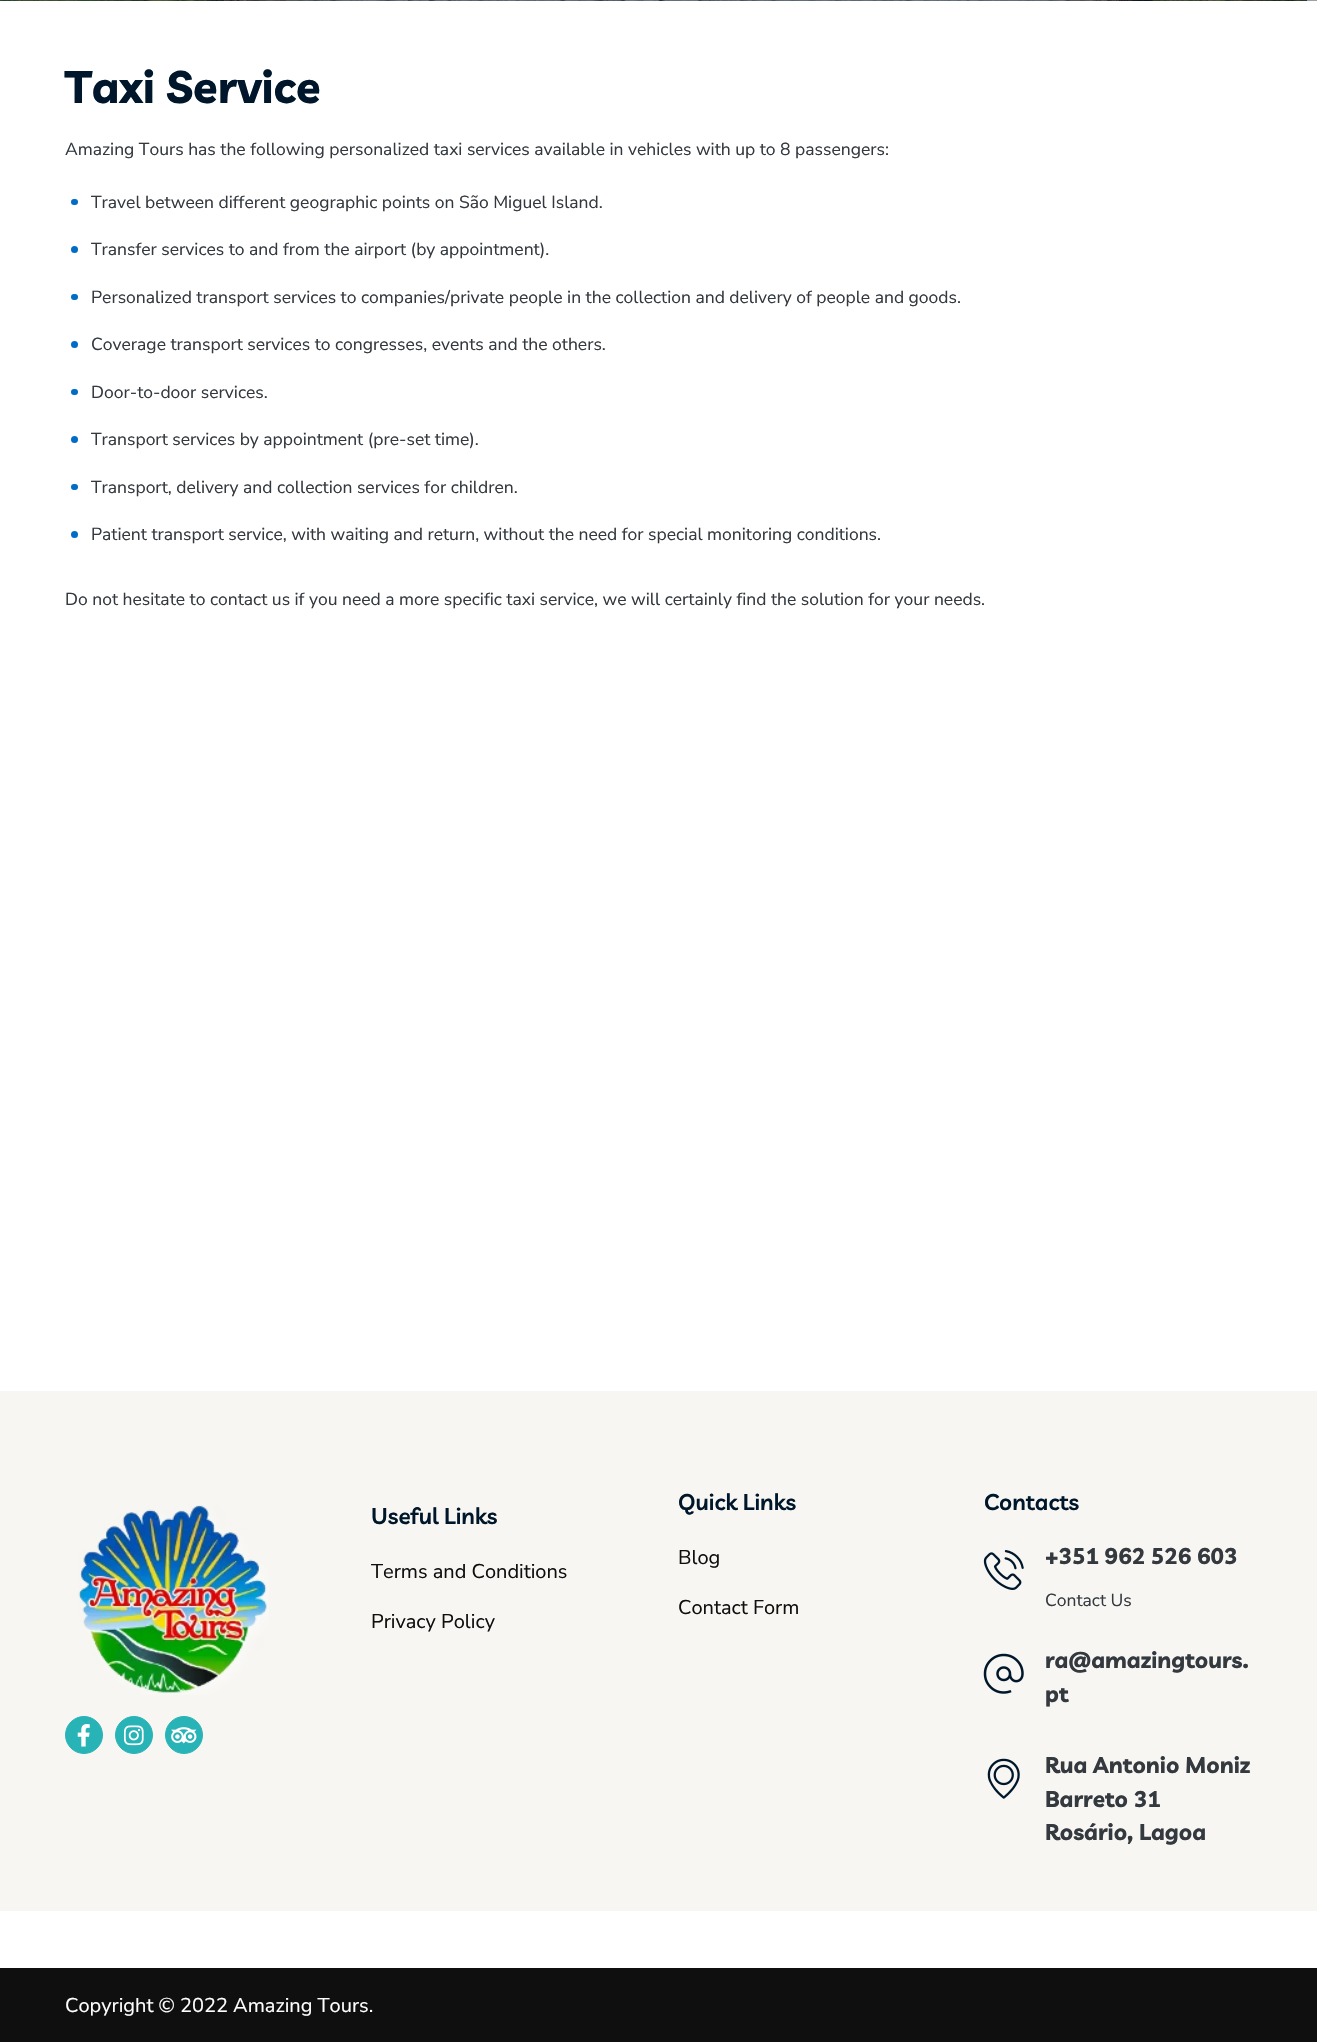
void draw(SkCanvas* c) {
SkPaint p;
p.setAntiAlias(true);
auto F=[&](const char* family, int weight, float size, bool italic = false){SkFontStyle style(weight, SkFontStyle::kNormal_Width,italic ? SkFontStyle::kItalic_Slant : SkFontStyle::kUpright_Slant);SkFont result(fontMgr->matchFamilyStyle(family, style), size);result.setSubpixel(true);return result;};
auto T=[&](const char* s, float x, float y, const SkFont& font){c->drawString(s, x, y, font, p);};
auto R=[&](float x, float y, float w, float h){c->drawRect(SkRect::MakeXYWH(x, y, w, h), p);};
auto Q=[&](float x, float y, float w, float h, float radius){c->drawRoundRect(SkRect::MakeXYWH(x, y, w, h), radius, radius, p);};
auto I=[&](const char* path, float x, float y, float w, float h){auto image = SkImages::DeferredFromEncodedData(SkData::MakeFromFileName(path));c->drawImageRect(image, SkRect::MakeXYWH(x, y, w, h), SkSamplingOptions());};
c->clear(0xffffffff);
I("1.png",0,0,1317,1);
auto f1 = F("Livvic",700,45);
p.setColor(0xff00172b);
T("Taxi Service",65,103,f1);
auto f2 = F("Nunito Sans",400,17.5);
p.setColor(0xff33393e);
T("Amazing Tours has the following personalized taxi services available in vehicles with up to 8 passengers:",65,155,f2);
p.setColor(0xff006cc6);
Q(71,199,7,6,3);
p.setColor(0xff33393e);
T("Travel between different geographic points on São Miguel Island.",91,208,f2);
p.setColor(0xff006cc6);
c->drawCircle(74.5,249.5,3.5,p);
p.setColor(0xff33393e);
T("Transfer services to and from the airport (by appointment).",91,255,f2);
p.setColor(0xff006cc6);
Q(71,294,7,6,3);
p.setColor(0xff33393e);
T("Personalized transport services to companies/private people in the collection and delivery of people and goods.",91,303,f2);
p.setColor(0xff006cc6);
c->drawCircle(74.5,344.5,3.5,p);
p.setColor(0xff33393e);
T("Coverage transport services to congresses, events and the others.",91,350,f2);
p.setColor(0xff006cc6);
Q(71,389,7,6,3);
p.setColor(0xff33393e);
T("Door-to-door services.",91,398,f2);
p.setColor(0xff006cc6);
c->drawCircle(74.5,439.5,3.5,p);
p.setColor(0xff33393e);
T("Transport services by appointment (pre-set time).",91,445,f2);
p.setColor(0xff006cc6);
Q(71,484,7,6,3);
p.setColor(0xff33393e);
T("Transport, delivery and collection services for children.",91,493,f2);
p.setColor(0xff006cc6);
c->drawCircle(74.5,534.5,3.5,p);
p.setColor(0xff33393e);
T("Patient transport service, with waiting and return, without the need for special monitoring conditions.",91,540,f2);
T("Do not hesitate to contact us if you need a more specific taxi service, we will certainly find the solution for your needs.",65,605,f2);
p.setColor(0xfff7f6f2);
R(0,1391,1317,520);
I("2.png",78,1505,191,190);
p.setColor(0xff28b3b6);
c->drawCircle(84,1735,18.5,p);
p.setStroke(true);
p.setStrokeWidth(1);
c->drawCircle(84,1735,18.5,p);
I("3.png",77,1724,13,23);
p.setStroke(false);
c->drawCircle(134,1735,18.5,p);
p.setStroke(true);
c->drawCircle(134,1735,18.5,p);
I("4.png",123,1725,21,21);
p.setStroke(false);
c->drawCircle(184,1735,18.5,p);
p.setStroke(true);
c->drawCircle(184,1735,18.5,p);
I("5.png",171,1727,26,17);
auto f3 = F("Livvic",600,22.5);
p.setStroke(false);
p.setColor(0xff00172b);
T("Useful Links",371,1524,f3);
auto f4 = F("Nunito Sans",400,20);
p.setColor(0xff0f0f0f);
T("Terms and Conditions",371,1578,f4);
T("Privacy Policy",371,1628,f4);
p.setColor(0xff00172b);
T("Quick Links",678,1510,f3);
p.setColor(0xff0f0f0f);
T("Blog",678,1564,f4);
T("Contact Form",678,1614,f4);
p.setColor(0xff00172b);
T("Contacts",984,1510,f3);
I("6.png",983,1550,41,40);
auto f5 = F("Livvic",700,22.5);
p.setColor(0xff33393e);
T("+351 962 526 603",1045,1564,f5);
T("Contact Us",1045,1606,f2);
I("7.png",983,1653,41,41);
T("ra@amazingtours.",1045,1668,f5);
T("pt",1045,1702,f5);
I("8.png",987,1758,33,41);
T("Rua Antonio Moniz",1045,1773,f5);
T("Barreto 31",1045,1807,f5);
T("Rosário, Lagoa",1045,1840,f5);
p.setColor(0xff0f0f0f);
R(0,1968,1317,74);
p.setColor(0xffffffff);
T("Copyright © 2022 Amazing Tours.",65,2012,f4);
}
